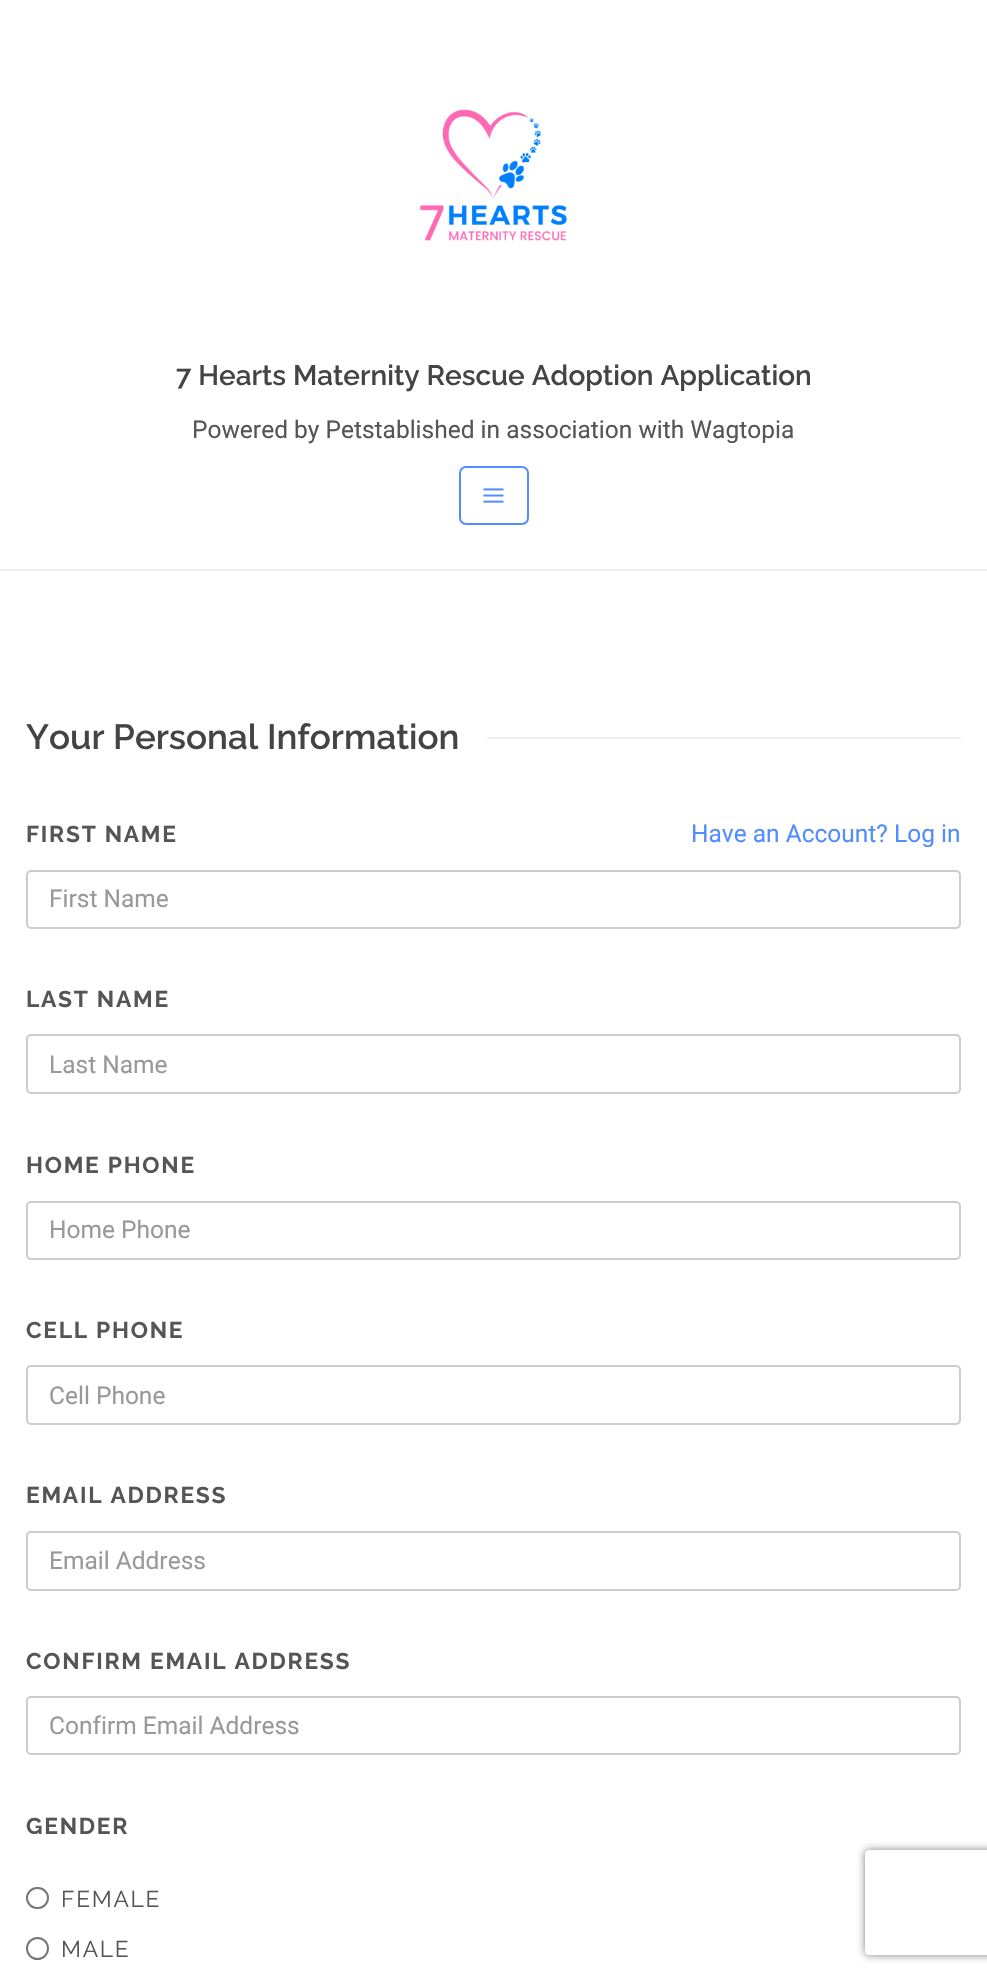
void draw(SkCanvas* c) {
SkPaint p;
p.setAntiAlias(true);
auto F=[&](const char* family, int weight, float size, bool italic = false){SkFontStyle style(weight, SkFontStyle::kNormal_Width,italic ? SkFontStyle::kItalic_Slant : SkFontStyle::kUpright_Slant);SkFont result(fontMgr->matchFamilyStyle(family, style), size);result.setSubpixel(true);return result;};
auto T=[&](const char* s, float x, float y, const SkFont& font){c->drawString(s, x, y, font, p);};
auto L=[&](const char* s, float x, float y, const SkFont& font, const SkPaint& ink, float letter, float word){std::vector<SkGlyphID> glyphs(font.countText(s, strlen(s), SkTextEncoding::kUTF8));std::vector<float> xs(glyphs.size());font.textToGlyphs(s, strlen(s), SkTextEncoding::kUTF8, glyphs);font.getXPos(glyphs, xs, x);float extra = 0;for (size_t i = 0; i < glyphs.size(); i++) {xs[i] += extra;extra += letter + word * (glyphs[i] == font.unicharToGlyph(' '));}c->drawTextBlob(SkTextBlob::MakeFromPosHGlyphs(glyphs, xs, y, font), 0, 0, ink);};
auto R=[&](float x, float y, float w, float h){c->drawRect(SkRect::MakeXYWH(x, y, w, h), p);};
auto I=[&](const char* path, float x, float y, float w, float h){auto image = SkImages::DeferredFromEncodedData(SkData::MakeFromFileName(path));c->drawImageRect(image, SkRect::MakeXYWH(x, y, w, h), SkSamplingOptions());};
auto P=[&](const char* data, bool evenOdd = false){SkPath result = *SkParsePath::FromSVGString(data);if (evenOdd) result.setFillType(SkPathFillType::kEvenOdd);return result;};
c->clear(0xffffffff);
p.setColor(0xffeeeeee);
R(0,569,987,2);
I("1.png",420,109,147,132);
auto f1 = F("Raleway",600,28);
p.setColor(0xff444444);
T("7 Hearts Maternity Rescue Adoption Application",176,385,f1);
auto f2 = F("Roboto",400,24.5);
p.setColor(0xff555555);
T("Powered by Petstablished in association with Wagtopia",192,438,f2);
p.setStroke(true);
p.setStrokeWidth(2);
p.setColor(0xff528cff);
c->drawRoundRect(SkRect::MakeXYWH(460,467,68,57),6,6,p);
I("2.png",483,488,21,15);
auto f3 = F("Raleway",600,35);
p.setStroke(false);
p.setColor(0xff444444);
T("Your Personal Information",26,749,f3);
p.setColor(0xffeeeeee);
R(487,737,474,2);
auto f4 = F("Raleway",700,22.75);
p.setColor(0xff555555);
L("FIRST NAME",26,842,f4,p,1.75,0);
p.setColor(0xff528cff);
T("Have an Account? Log in",691,842,f2);
p.setStroke(true);
p.setColor(0xffcccccc);
c->drawRoundRect(SkRect::MakeXYWH(27,871,933,57),4,4,p);
p.setStroke(false);
p.setColor(0xff999999);
T("First Name",49,907,f2);
p.setColor(0xff555555);
L("LAST NAME",26,1007,f4,p,1.75,0);
p.setStroke(true);
p.setColor(0xffcccccc);
c->drawRoundRect(SkRect::MakeXYWH(27,1035,933,58),4,4,p);
p.setStroke(false);
p.setColor(0xff999999);
T("Last Name",49,1073,f2);
p.setColor(0xff555555);
L("HOME PHONE",26,1173,f4,p,1.75,0);
p.setStroke(true);
p.setColor(0xffcccccc);
c->drawRoundRect(SkRect::MakeXYWH(27,1202,933,57),4,4,p);
p.setStroke(false);
p.setColor(0xff999999);
T("Home Phone",49,1238,f2);
p.setColor(0xff555555);
L("CELL PHONE",26,1338,f4,p,1.75,0);
p.setStroke(true);
p.setColor(0xffcccccc);
c->drawRoundRect(SkRect::MakeXYWH(27,1366,933,58),4,4,p);
p.setStroke(false);
p.setColor(0xff999999);
T("Cell Phone",49,1404,f2);
p.setColor(0xff555555);
L("EMAIL ADDRESS",26,1503,f4,p,1.75,0);
p.setStroke(true);
p.setColor(0xffcccccc);
c->drawRoundRect(SkRect::MakeXYWH(27,1532,933,58),4,4,p);
p.setStroke(false);
p.setColor(0xff999999);
T("Email Address",49,1569,f2);
p.setColor(0xff555555);
L("CONFIRM EMAIL ADDRESS",26,1669,f4,p,1.75,0);
p.setStroke(true);
p.setColor(0xffcccccc);
c->drawRoundRect(SkRect::MakeXYWH(27,1697,933,57),4,4,p);
p.setStroke(false);
p.setColor(0xff999999);
T("Confirm Email Address",49,1734,f2);
p.setColor(0xff555555);
L("GENDER",26,1834,f4,p,1.75,0);
p.setStroke(true);
p.setColor(0xff767676);
c->drawRoundRect(SkRect::MakeXYWH(27,1888,21,20),10,10,p);
auto f5 = F("Raleway",400,22.75);
p.setStroke(false);
p.setColor(0xff555555);
L("FEMALE",61,1907,f5,p,1.75,0);
p.setStroke(true);
p.setColor(0xff767676);
c->drawCircle(37.5,1948.5,10.5,p);
p.setStroke(false);
p.setColor(0xff555555);
L("MALE",61,1957,f5,p,1.75,0);
c->save();
c->clipPath(P("M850 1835h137v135h-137zm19 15h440c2 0 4 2 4 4v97c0 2-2 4-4 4h-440c-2 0-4-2-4-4v-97c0-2 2-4 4-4z",true),true);
p.setColor(0xff808080);
p.setMaskFilter(SkMaskFilter::MakeBlur(kNormal_SkBlurStyle, 4.5));
c->drawRoundRect(SkRect::MakeXYWH(865,1850,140,105),4,4,p);
p.setMaskFilter(nullptr);
c->restore();
}
